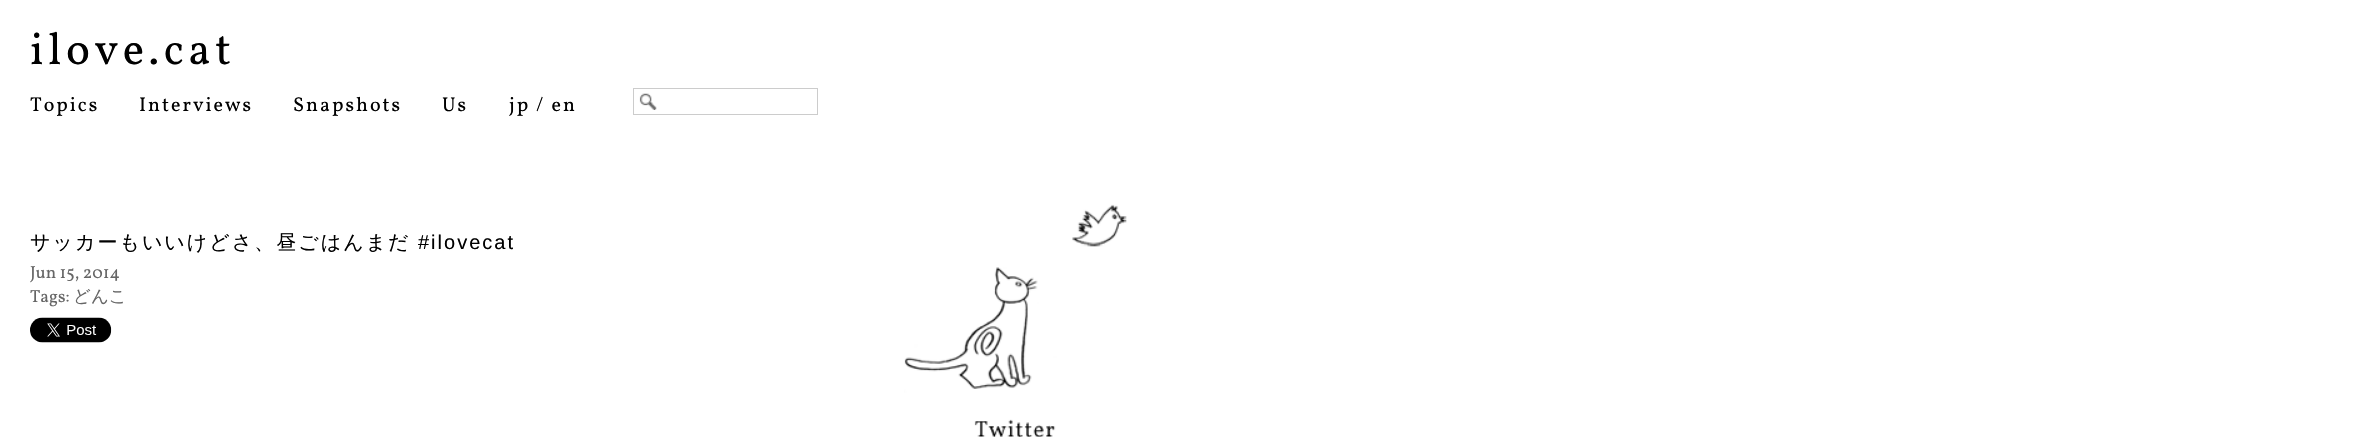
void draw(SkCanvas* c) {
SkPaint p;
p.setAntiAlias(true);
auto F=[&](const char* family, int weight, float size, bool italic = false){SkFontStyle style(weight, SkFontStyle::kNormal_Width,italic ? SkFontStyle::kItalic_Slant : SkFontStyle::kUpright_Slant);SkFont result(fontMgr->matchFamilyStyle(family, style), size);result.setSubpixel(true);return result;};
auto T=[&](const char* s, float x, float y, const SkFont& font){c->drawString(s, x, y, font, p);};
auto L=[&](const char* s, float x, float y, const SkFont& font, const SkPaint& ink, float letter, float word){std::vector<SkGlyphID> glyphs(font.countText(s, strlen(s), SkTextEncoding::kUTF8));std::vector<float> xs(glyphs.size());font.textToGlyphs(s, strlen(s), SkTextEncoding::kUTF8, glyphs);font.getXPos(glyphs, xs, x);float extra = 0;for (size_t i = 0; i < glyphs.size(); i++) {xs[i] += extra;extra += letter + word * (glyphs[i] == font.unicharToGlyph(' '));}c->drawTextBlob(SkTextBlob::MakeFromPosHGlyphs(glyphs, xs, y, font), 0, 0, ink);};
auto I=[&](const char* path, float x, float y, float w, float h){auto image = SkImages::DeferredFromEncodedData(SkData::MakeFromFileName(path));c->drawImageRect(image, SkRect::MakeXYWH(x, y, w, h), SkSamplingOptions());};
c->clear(0xffffffff);
auto f1 = F("Vollkorn",400,45);
p.setColor(0xff000000);
L("ilove.cat",30,64,f1,p,4.5,0);
auto f2 = F("Vollkorn",400,20);
L("Topics",30,111,f2,p,2,0);
L("Interviews",139,111,f2,p,2,0);
L("Snapshots",293,111,f2,p,2,0);
L("Us",442,111,f2,p,2,0);
L("jp / en",509,111,f2,p,2,0);
I("1.png",639,93,18,17);
p.setStroke(true);
p.setStrokeWidth(1);
p.setColor(0xffcccccc);
c->drawRect(SkRect::MakeXYWH(633.5,88.5,184,26),p);
auto f3 = F("WenQuanYi Zen Hei",500,20);
p.setStroke(false);
p.setColor(0xff000000);
L("サッカーもいいけどさ、昼ごはんまだ",30,249,f3,p,2,0);
auto f4 = F("Liberation Sans",400,20);
L("#ilovecat",418,249,f4,p,2,0);
auto f5 = F("Vollkorn",400,17.5);
p.setColor(0xff666666);
T("Jun 15, 2014",30,278,f5);
T("Tags:",30,302,f5);
auto f6 = F("WenQuanYi Zen Hei",500,17.5);
T("どんこ",73,302,f6);
I("2.png",30,317,82,26);
I("3.png",904,204,223,233);
}
